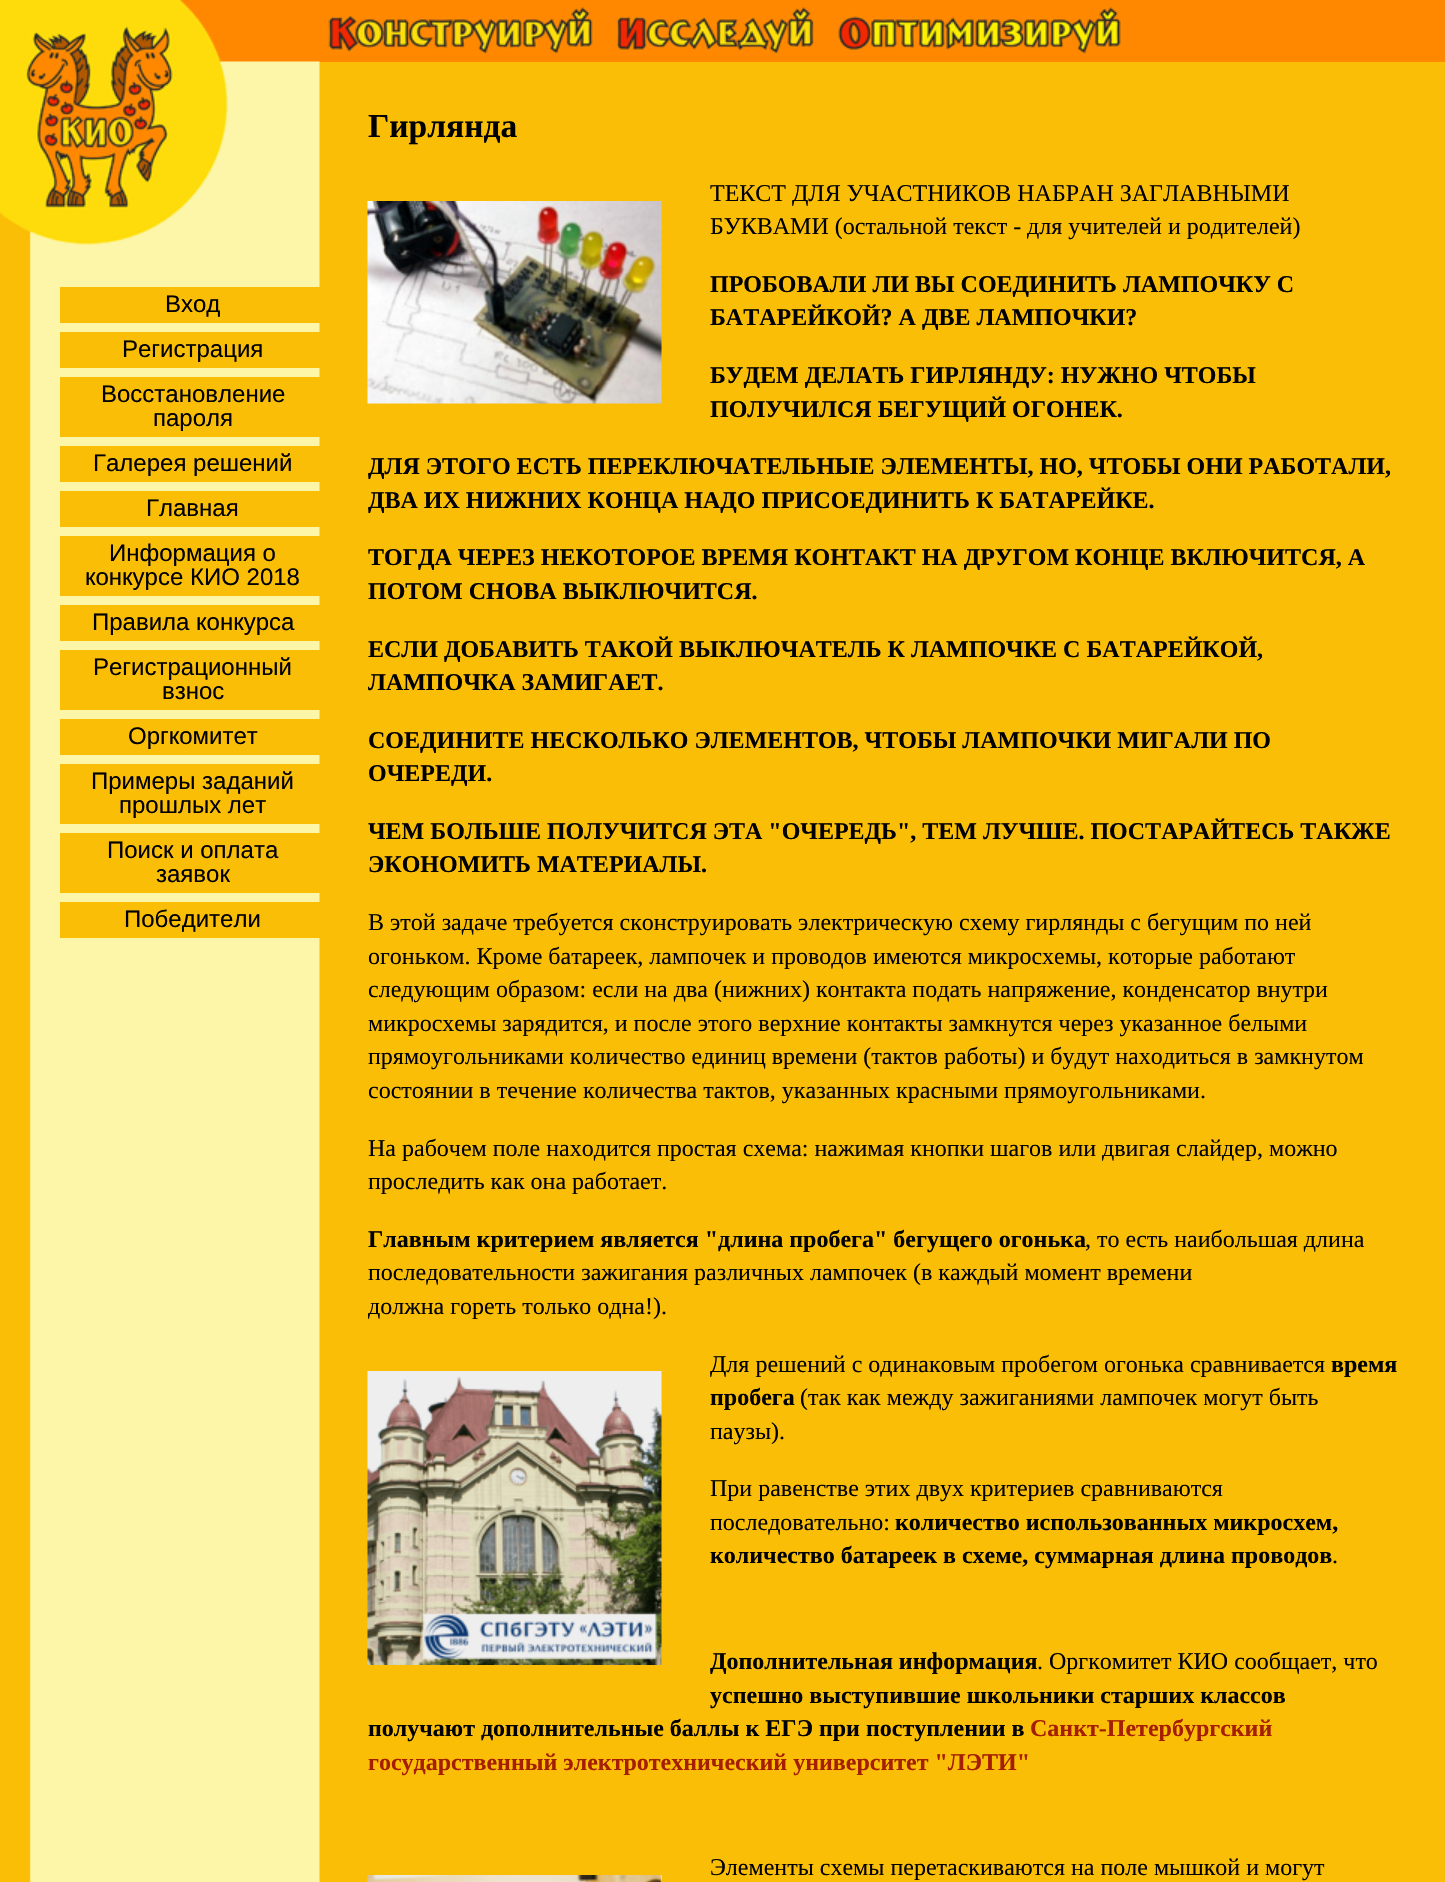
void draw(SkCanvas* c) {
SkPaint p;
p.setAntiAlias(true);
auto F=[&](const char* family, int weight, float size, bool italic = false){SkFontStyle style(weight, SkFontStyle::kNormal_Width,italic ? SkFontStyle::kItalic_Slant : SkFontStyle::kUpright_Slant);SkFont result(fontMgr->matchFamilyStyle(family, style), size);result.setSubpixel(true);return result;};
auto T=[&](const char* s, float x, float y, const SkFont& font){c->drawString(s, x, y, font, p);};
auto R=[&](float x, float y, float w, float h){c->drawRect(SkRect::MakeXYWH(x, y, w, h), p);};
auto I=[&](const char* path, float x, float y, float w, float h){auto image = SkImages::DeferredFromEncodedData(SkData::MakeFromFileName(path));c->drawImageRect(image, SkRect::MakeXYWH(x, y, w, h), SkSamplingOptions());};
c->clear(0xfffbbe07);
p.setColor(0xffff8800);
R(181,0,1264,62);
I("1.png",328,7,794,47);
I("2.png",0,61,320,1821);
I("3.png",0,0,228,245);
p.setColor(0xfffbbe07);
R(60,287,260,36);
auto f1 = F("Liberation Sans",400,24);
p.setColor(0xff000000);
T("Вход",165,312,f1);
p.setColor(0xfffbbe07);
R(60,332,260,36);
p.setColor(0xff000000);
T("Регистрация",122,357,f1);
p.setColor(0xfffbbe07);
R(60,377,260,60);
p.setColor(0xff000000);
T("Восстановление",101,402,f1);
T("пароля",153,426,f1);
p.setColor(0xfffbbe07);
R(60,446,260,36);
p.setColor(0xff000000);
T("Галерея решений",93,471,f1);
p.setColor(0xfffbbe07);
R(60,491,260,36);
p.setColor(0xff000000);
T("Главная",146,516,f1);
p.setColor(0xfffbbe07);
R(60,536,260,60);
p.setColor(0xff000000);
T("Информация о",109,561,f1);
T("конкурсе КИО 2018",85,585,f1);
p.setColor(0xfffbbe07);
R(60,605,260,36);
p.setColor(0xff000000);
T("Правила конкурса",92,630,f1);
p.setColor(0xfffbbe07);
R(60,650,260,60);
p.setColor(0xff000000);
T("Регистрационный",93,675,f1);
T("взнос",162,699,f1);
p.setColor(0xfffbbe07);
R(60,719,260,36);
p.setColor(0xff000000);
T("Оргкомитет",128,744,f1);
p.setColor(0xfffbbe07);
R(60,764,260,60);
p.setColor(0xff000000);
T("Примеры заданий",91,789,f1);
T("прошлых лет",119,813,f1);
p.setColor(0xfffbbe07);
R(60,833,260,60);
p.setColor(0xff000000);
T("Поиск и оплата",107,858,f1);
T("заявок",156,882,f1);
p.setColor(0xfffbbe07);
R(60,902,260,36);
p.setColor(0xff000000);
T("Победители",124,927,f1);
auto f2 = F("Liberation Serif",700,33.5);
T("Гирлянда",368,137,f2);
auto f3 = F("Liberation Serif",400,24);
T("ТЕКСТ ДЛЯ УЧАСТНИКОВ НАБРАН ЗАГЛАВНЫМИ",710,201,f3);
I("4.png",367,201,295,203);
T("БУКВАМИ (остальной текст - для учителей и родителей)",710,234,f3);
auto f4 = F("Liberation Serif",700,24);
T("ПРОБОВАЛИ ЛИ ВЫ СОЕДИНИТЬ ЛАМПОЧКУ С",710,292,f4);
T("БАТАРЕЙКОЙ? А ДВЕ ЛАМПОЧКИ?",710,325,f4);
T("БУДЕМ ДЕЛАТЬ ГИРЛЯНДУ: НУЖНО ЧТОБЫ",710,383,f4);
T("ПОЛУЧИЛСЯ БЕГУЩИЙ ОГОНЕК.",710,417,f4);
T("ДЛЯ ЭТОГО ЕСТЬ ПЕРЕКЛЮЧАТЕЛЬНЫЕ ЭЛЕМЕНТЫ, НО, ЧТОБЫ ОНИ РАБОТАЛИ,",368,474,f4);
T("ДВА ИХ НИЖНИХ КОНЦА НАДО ПРИСОЕДИНИТЬ К БАТАРЕЙКЕ.",368,508,f4);
T("ТОГДА ЧЕРЕЗ НЕКОТОРОЕ ВРЕМЯ КОНТАКТ НА ДРУГОМ КОНЦЕ ВКЛЮЧИТСЯ, А",368,565,f4);
T("ПОТОМ СНОВА ВЫКЛЮЧИТСЯ.",368,599,f4);
T("ЕСЛИ ДОБАВИТЬ ТАКОЙ ВЫКЛЮЧАТЕЛЬ К ЛАМПОЧКЕ С БАТАРЕЙКОЙ,",368,657,f4);
T("ЛАМПОЧКА ЗАМИГАЕТ.",368,690,f4);
T("СОЕДИНИТЕ НЕСКОЛЬКО ЭЛЕМЕНТОВ, ЧТОБЫ ЛАМПОЧКИ МИГАЛИ ПО",368,748,f4);
T("ОЧЕРЕДИ.",368,781,f4);
T("ЧЕМ БОЛЬШЕ ПОЛУЧИТСЯ ЭТА \"ОЧЕРЕДЬ\", ТЕМ ЛУЧШЕ. ПОСТАРАЙТЕСЬ ТАКЖЕ",368,839,f4);
T("ЭКОНОМИТЬ МАТЕРИАЛЫ.",368,872,f4);
T("В этой задаче требуется сконструировать электрическую схему гирлянды с бегущим по ней",368,930,f3);
T("огоньком. Кроме батареек, лампочек и проводов имеются микросхемы, которые работают",368,964,f3);
T("следующим образом: если на два (нижних) контакта подать напряжение, конденсатор внутри",368,997,f3);
T("микросхемы зарядится, и после этого верхние контакты замкнутся через указанное белыми",368,1031,f3);
T("прямоугольниками количество единиц времени (тактов работы) и будут находиться в замкнутом",368,1064,f3);
T("состоянии в течение количества тактов, указанных красными прямоугольниками.",368,1098,f3);
T("На рабочем поле находится простая схема: нажимая кнопки шагов или двигая слайдер, можно",368,1156,f3);
T("проследить как она работает.",368,1189,f3);
T("Главным критерием является \"длина пробега\" бегущего огонька",368,1247,f4);
T(", то есть наибольшая длина",1085,1247,f3);
T("последовательности зажигания различных лампочек (в каждый момент времени",368,1280,f3);
T("должна гореть только одна!).",368,1314,f3);
I("5.png",367,1371,295,294);
T("Для решений с одинаковым пробегом огонька сравнивается",710,1372,f3);
T("время",1331,1372,f4);
T("пробега",710,1405,f4);
T("(так как между зажиганиями лампочек могут быть",800,1405,f3);
T("паузы).",710,1439,f3);
T("При равенстве этих двух критериев сравниваются",710,1496,f3);
T("последовательно:",710,1530,f3);
T("количество использованных микросхем,",895,1530,f4);
T("количество батареек в схеме, суммарная длина проводов",710,1563,f4);
T(".",1332,1563,f3);
T("Дополнительная информация",710,1669,f4);
T(". Оргкомитет КИО сообщает, что",1037,1669,f3);
T("успешно выступившие школьники старших классов",710,1703,f4);
T("получают дополнительные баллы к ЕГЭ при поступлении в",368,1736,f4);
p.setColor(0xffa51e00);
T("Санкт-Петербургский",1030,1736,f4);
T("государственный электротехнический университет \"ЛЭТИ\"",368,1770,f4);
p.setColor(0xffffffff);
R(661,1875,1,7);
I("6.png",367,1875,295,7);
p.setColor(0xff000000);
T("Элементы схемы перетаскиваются на поле мышкой и могут",710,1875,f3);
}
